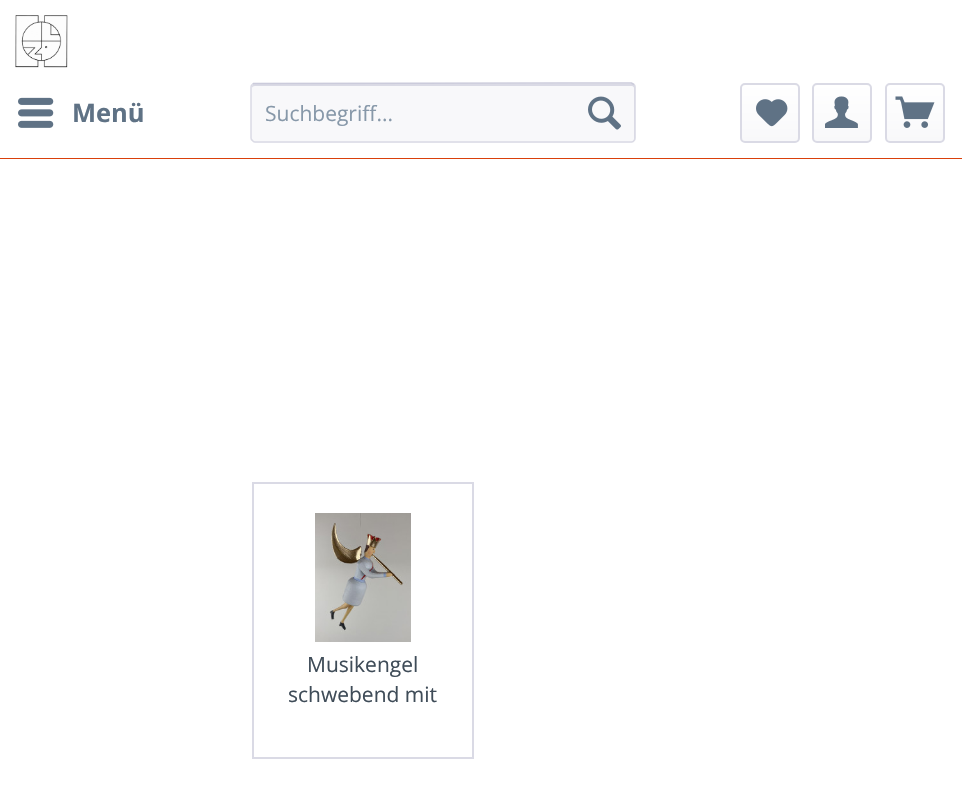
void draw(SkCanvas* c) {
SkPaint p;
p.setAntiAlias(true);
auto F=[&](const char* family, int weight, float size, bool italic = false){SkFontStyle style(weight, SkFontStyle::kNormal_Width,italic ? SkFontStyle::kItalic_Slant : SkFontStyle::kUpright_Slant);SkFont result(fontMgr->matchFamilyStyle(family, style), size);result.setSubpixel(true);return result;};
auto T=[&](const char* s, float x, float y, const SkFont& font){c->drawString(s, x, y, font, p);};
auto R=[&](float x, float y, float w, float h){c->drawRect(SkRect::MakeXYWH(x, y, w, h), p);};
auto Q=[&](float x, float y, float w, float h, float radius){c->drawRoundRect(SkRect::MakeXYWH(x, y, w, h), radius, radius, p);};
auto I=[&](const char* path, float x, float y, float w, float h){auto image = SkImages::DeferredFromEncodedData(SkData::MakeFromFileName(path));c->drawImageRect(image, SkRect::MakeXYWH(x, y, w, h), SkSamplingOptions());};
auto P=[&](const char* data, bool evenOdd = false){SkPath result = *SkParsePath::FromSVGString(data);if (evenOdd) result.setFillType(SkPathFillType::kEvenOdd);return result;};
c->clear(0xffffffff);
p.setColor(0xffd9400b);
R(0,158,962,1);
I("1.png",15,15,53,53);
I("2.png",18,97,36,31);
auto f1 = F("Open Sans",700,25.5);
p.setColor(0xff5f7285);
T("Menü",72,122,f1);
p.setColor(0xfff8f8fa);
Q(251,83,385,60,5);
p.setColor(0xffdadae5);
c->drawPath(P("M255 86h377c1 0 2 1 2 2v52c1 0 1-1 1-2v-51c0-2-1-3-3-3h-377c-2 0-3 1-3 3v1c0-1 1-2 3-2z"),p);
p.setStroke(true);
p.setStrokeWidth(1.5);
p.setColor(0xffcbcbdb);
c->drawPath(P("M252.5 84.5l1-1l315.5-.5h62.5l2.5 1.5"),p);
p.setColor(0xffdadae5);
c->drawPath(P("M634 84.5c1 .5 1 1.5 1 2.5v51c0 1 0 2-1 2.5c-.5 1-1.5 1.5-2.5 1.5h-376.5c-1 0-2-.5-2.5-1.5c-1-.5-1.5-1.5-1.5-2.5v-51c0-1 .5-2 1.5-2.5"),p);
auto f2 = F("Open Sans",400,21);
p.setStroke(false);
p.setColor(0xff8798a9);
T("Suchbegriff...",265,121,f2);
I("3.png",588,96,33,34);
{
const SkColor colors[] = {0xffffffff,0xfff8f8fa};
const float stops[] = {0,1};
const SkPoint ends[] = {{770,84}, {770,141}};
p.setShader(SkGradientShader::MakeLinear(ends, colors, stops, 2, SkTileMode::kClamp));
p.setAlpha(255);
}
Q(741,84,57,57,3);
p.setStroke(true);
p.setStrokeWidth(2);
p.setShader(nullptr);
p.setColor(0xffdadae5);
c->drawRoundRect(SkRect::MakeXYWH(741,84,58,58),4,4,p);
I("4.png",756,99,32,28);
p.setStroke(false);
{
const SkColor colors[] = {0xffffffff,0xfff8f8fa};
const float stops[] = {0,1};
const SkPoint ends[] = {{842,84}, {842,141}};
p.setShader(SkGradientShader::MakeLinear(ends, colors, stops, 2, SkTileMode::kClamp));
p.setAlpha(255);
}
Q(813,84,57,57,3);
p.setStroke(true);
p.setShader(nullptr);
p.setColor(0xffdadae5);
c->drawRoundRect(SkRect::MakeXYWH(813,84,58,58),4,4,p);
I("5.png",825,96,33,32);
p.setStroke(false);
{
const SkColor colors[] = {0xffffffff,0xfff8f8fa};
const float stops[] = {0,1};
const SkPoint ends[] = {{915,84}, {915,141}};
p.setShader(SkGradientShader::MakeLinear(ends, colors, stops, 2, SkTileMode::kClamp));
p.setAlpha(255);
}
Q(887,84,57,57,3);
p.setStroke(true);
p.setShader(nullptr);
p.setColor(0xffdadae5);
c->drawRoundRect(SkRect::MakeXYWH(886,84,58,58),4,4,p);
I("6.png",895,96,40,32);
c->drawRect(SkRect::MakeXYWH(253,483,220,275),p);
I("7.png",315,513,96,129);
p.setStroke(false);
p.setColor(0xff3f4c58);
T("Musikengel",307,672,f2);
T("schwebend mit",288,702,f2);
}
